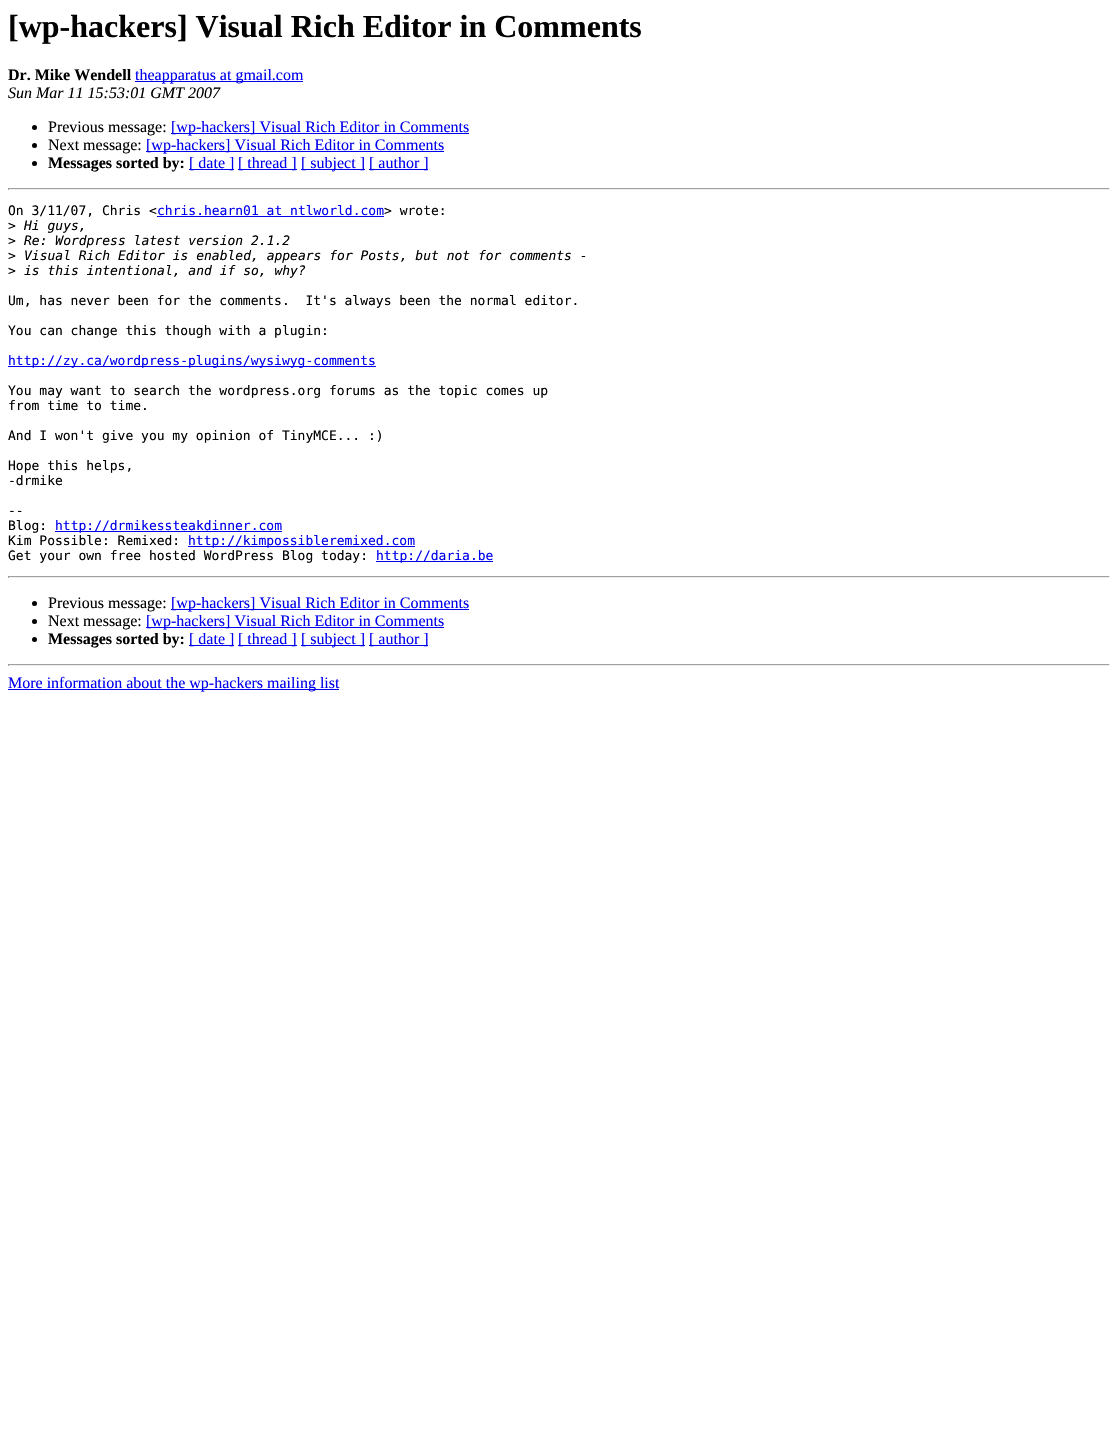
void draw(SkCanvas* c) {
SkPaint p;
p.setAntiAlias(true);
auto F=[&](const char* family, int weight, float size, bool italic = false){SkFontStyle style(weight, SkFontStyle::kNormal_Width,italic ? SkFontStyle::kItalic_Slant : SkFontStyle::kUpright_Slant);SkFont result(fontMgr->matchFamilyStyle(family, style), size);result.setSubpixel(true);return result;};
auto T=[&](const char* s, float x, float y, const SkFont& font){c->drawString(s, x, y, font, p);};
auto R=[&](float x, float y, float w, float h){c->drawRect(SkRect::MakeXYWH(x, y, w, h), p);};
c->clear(0xffffffff);
auto f1 = F("Liberation Serif",700,32);
p.setColor(0xff000000);
T("[wp-hackers] Visual Rich Editor in Comments",8,37,f1);
auto f2 = F("Liberation Serif",700,16);
T("Dr. Mike Wendell",8,80,f2);
p.setColor(0xff0000ee);
R(135,81,168,1);
auto f3 = F("Liberation Serif",400,16);
T("theapparatus at gmail.com",135,80,f3);
auto f4 = F("Liberation Serif",400,16,true);
p.setColor(0xff000000);
T("Sun Mar 11 15:53:01 GMT 2007",8,98,f4);
c->drawCircle(34.5,127.5,2.5,p);
T("Previous message:",48,132,f3);
p.setColor(0xff0000ee);
R(171,133,298,1);
T("[wp-hackers] Visual Rich Editor in Comments",171,132,f3);
p.setColor(0xff000000);
c->drawCircle(34.5,145.5,2.5,p);
T("Next message:",48,150,f3);
p.setColor(0xff0000ee);
R(146,151,298,1);
T("[wp-hackers] Visual Rich Editor in Comments",146,150,f3);
p.setColor(0xff000000);
c->drawCircle(34.5,163.5,2.5,p);
T("Messages sorted by:",48,168,f2);
p.setColor(0xff0000ee);
R(189,169,45,1);
T("[ date ]",189,168,f3);
R(238,169,59,1);
T("[ thread ]",238,168,f3);
R(301,169,64,1);
T("[ subject ]",301,168,f3);
R(369,169,59,1);
T("[ author ]",369,168,f3);
p.setColor(0xff9f9f9f);
R(8,188,1102,1);
p.setColor(0xffeeeeee);
R(1109,188,1,2);
R(8,189,1102,1);
p.setColor(0xff9f9f9f);
R(8,188,1,2);
auto f5 = F("DejaVu Sans Mono",400,13);
p.setColor(0xff000000);
T("On 3/11/07, Chris <",8,215,f5);
p.setColor(0xff0000ee);
T("chris.hearn01 at ntlworld.com",157,215,f5);
R(157,216,227,1);
p.setColor(0xff000000);
T("> wrote:",384,215,f5);
T(">",8,230,f5);
auto f6 = F("DejaVu Sans Mono",400,13,true);
T("Hi guys,",24,230,f6);
T(">",8,245,f5);
T("Re: Wordpress latest version 2.1.2",24,245,f6);
T(">",8,260,f5);
T("Visual Rich Editor is enabled, appears for Posts, but not for comments -",24,260,f6);
T(">",8,275,f5);
T("is this intentional, and if so, why?",24,275,f6);
T("Um, has never been for the comments.  It's always been the normal editor.",8,305,f5);
T("You can change this though with a plugin:",8,335,f5);
p.setColor(0xff0000ee);
R(8,366,368,1);
T("http://zy.ca/wordpress-plugins/wysiwyg-comments",8,365,f5);
p.setColor(0xff000000);
T("You may want to search the wordpress.org forums as the topic comes up",8,395,f5);
T("from time to time.",8,410,f5);
T("And I won't give you my opinion of TinyMCE... :)",8,440,f5);
T("Hope this helps,",8,470,f5);
T("-drmike",8,485,f5);
T("--",8,515,f5);
T("Blog:",8,530,f5);
p.setColor(0xff0000ee);
R(55,531,227,1);
T("http://drmikessteakdinner.com",55,530,f5);
p.setColor(0xff000000);
T("Kim Possible: Remixed:",8,545,f5);
p.setColor(0xff0000ee);
R(188,546,227,1);
T("http://kimpossibleremixed.com",188,545,f5);
p.setColor(0xff000000);
T("Get your own free hosted WordPress Blog today:",8,560,f5);
p.setColor(0xff0000ee);
R(376,561,117,1);
T("http://daria.be",376,560,f5);
p.setColor(0xff9f9f9f);
R(8,576,1102,1);
p.setColor(0xffeeeeee);
R(1109,576,1,2);
R(8,577,1102,1);
p.setColor(0xff9f9f9f);
R(8,576,1,2);
p.setColor(0xff000000);
c->drawCircle(34.5,603.5,2.5,p);
T("Previous message:",48,608,f3);
p.setColor(0xff0000ee);
R(171,609,298,1);
T("[wp-hackers] Visual Rich Editor in Comments",171,608,f3);
p.setColor(0xff000000);
c->drawCircle(34.5,621.5,2.5,p);
T("Next message:",48,626,f3);
p.setColor(0xff0000ee);
R(146,627,298,1);
T("[wp-hackers] Visual Rich Editor in Comments",146,626,f3);
p.setColor(0xff000000);
c->drawCircle(34.5,639.5,2.5,p);
T("Messages sorted by:",48,644,f2);
p.setColor(0xff0000ee);
R(189,645,45,1);
T("[ date ]",189,644,f3);
R(238,645,59,1);
T("[ thread ]",238,644,f3);
R(301,645,64,1);
T("[ subject ]",301,644,f3);
R(369,645,59,1);
T("[ author ]",369,644,f3);
p.setColor(0xff9f9f9f);
R(8,664,1102,1);
p.setColor(0xffeeeeee);
R(1109,664,1,2);
R(8,665,1102,1);
p.setColor(0xff9f9f9f);
R(8,664,1,2);
p.setColor(0xff0000ee);
R(8,689,331,1);
T("More information about the wp-hackers mailing list",8,688,f3);
}
